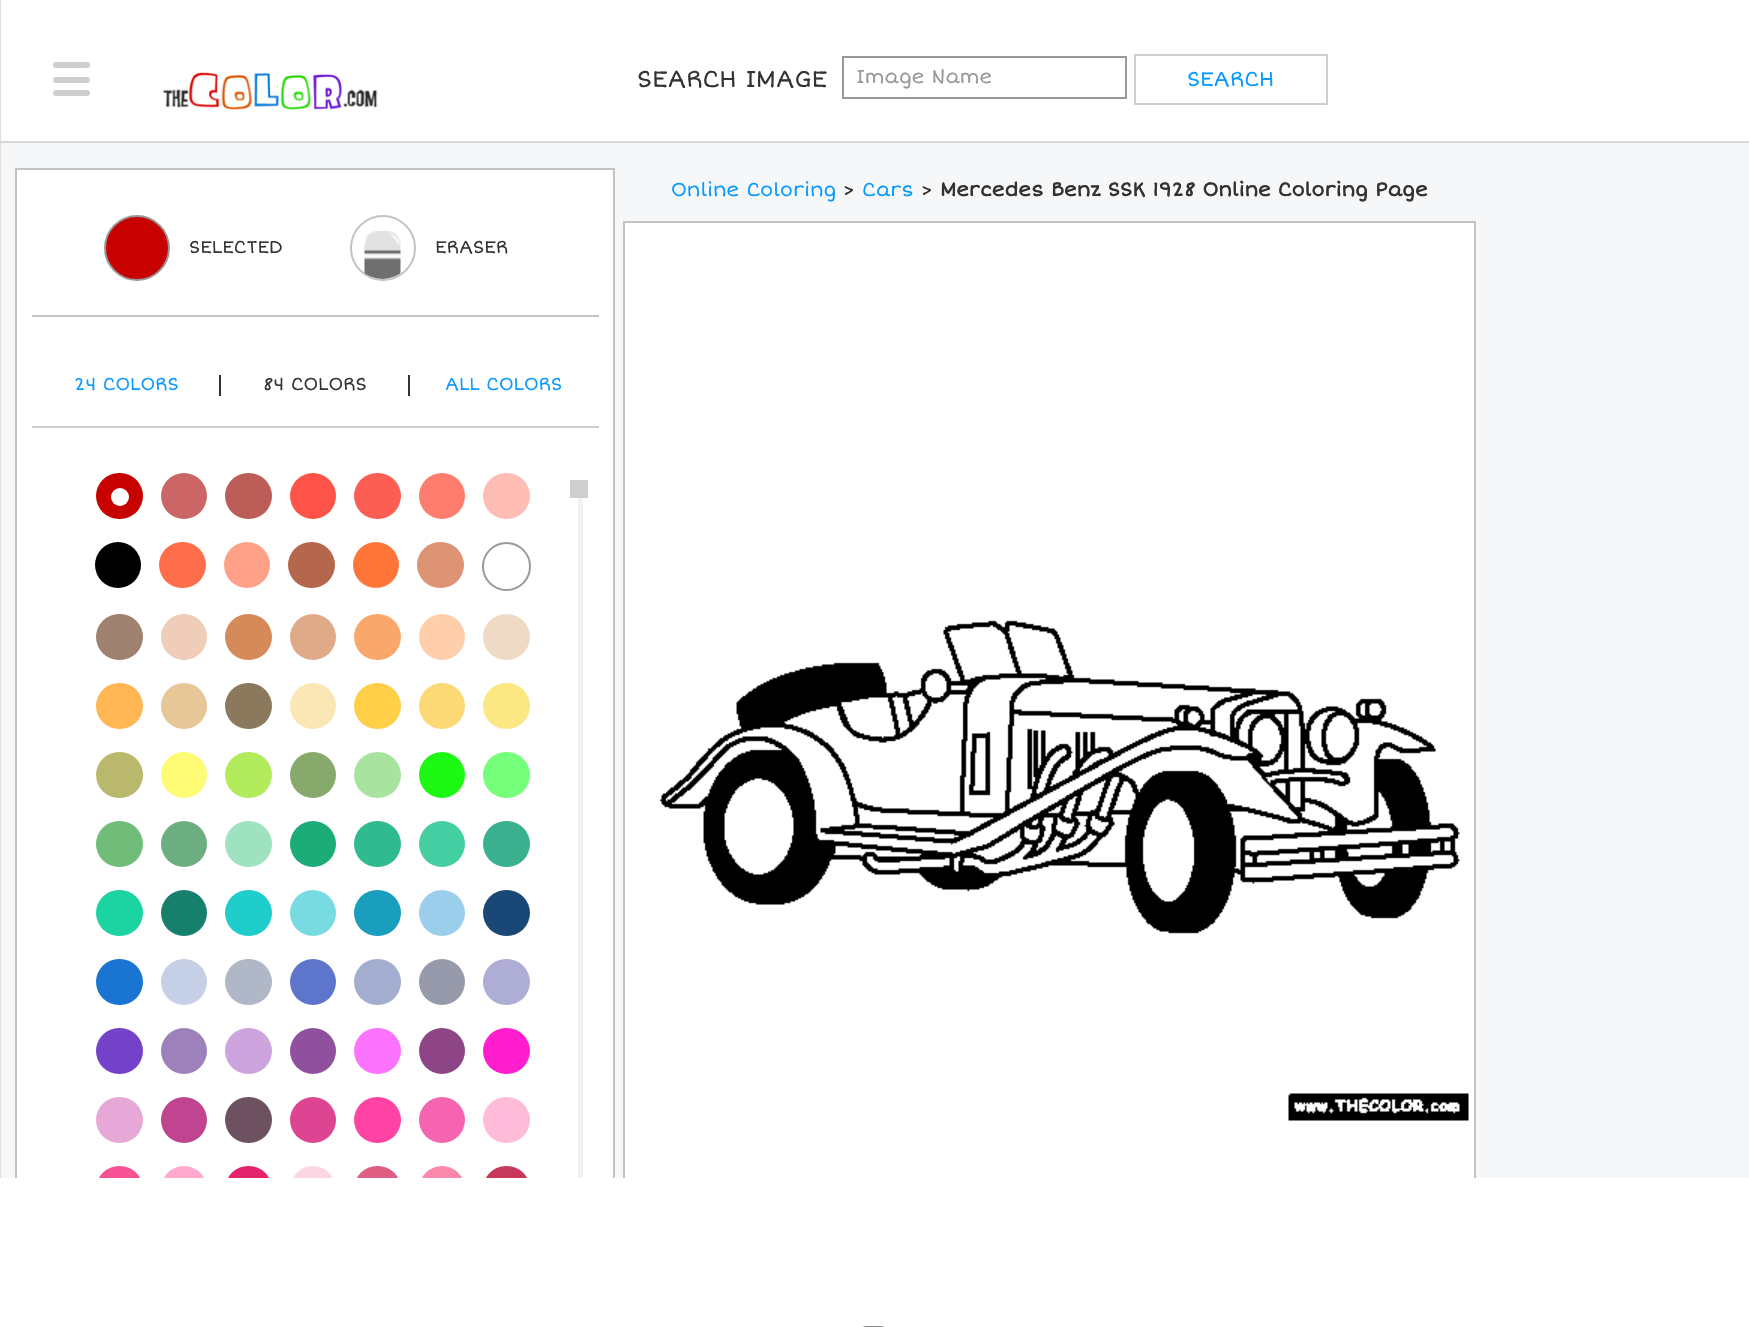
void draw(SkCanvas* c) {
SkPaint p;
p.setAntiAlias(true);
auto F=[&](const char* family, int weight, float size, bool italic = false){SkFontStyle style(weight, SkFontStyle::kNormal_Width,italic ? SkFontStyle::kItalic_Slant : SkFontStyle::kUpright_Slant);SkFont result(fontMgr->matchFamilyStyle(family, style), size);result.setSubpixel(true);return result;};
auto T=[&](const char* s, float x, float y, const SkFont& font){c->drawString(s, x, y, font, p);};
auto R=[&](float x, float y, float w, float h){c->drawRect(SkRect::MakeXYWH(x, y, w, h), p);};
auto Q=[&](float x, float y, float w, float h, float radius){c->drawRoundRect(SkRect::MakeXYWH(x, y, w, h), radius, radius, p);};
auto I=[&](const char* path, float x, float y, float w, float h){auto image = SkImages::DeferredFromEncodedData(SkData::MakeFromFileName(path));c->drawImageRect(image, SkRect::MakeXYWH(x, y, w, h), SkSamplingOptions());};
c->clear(0xfff6f7f9);
p.setColor(0xffffffff);
R(1,0,1748,141);
p.setColor(0xffd7d7d7);
R(0,141,1749,2);
p.setColor(0xffdfdfdf);
R(0,0,1,1178);
p.setColor(0xffcecece);
Q(53,62,37,6,3);
Q(53,77,37,6,3);
Q(53,90,37,6,3);
I("1.png",162,72,216,39);
auto f1 = F("Short Stack",400,24);
p.setColor(0xff333333);
T("SEARCH IMAGE",637,87,f1);
p.setStroke(true);
p.setStrokeWidth(2);
p.setColor(0xff999999);
c->drawRect(SkRect::MakeXYWH(843,57,283,41),p);
auto f2 = F("Short Stack",400,19.5);
p.setStroke(false);
T("Image Name",856,83,f2);
p.setStroke(true);
p.setColor(0xffcecece);
c->drawRect(SkRect::MakeXYWH(1135,55,192,49),p);
auto f3 = F("Short Stack",400,21);
p.setStroke(false);
p.setColor(0xff099aff);
T("SEARCH",1187,86,f3);
T("Online Coloring",671,196,f2);
p.setColor(0xff333333);
T(">",843,196,f2);
p.setColor(0xff099aff);
T("Cars",862,196,f2);
p.setColor(0xff333333);
T(">",921,196,f2);
auto f4 = F("Short Stack",700,19.5);
T("Mercedes Benz SSK 1928 Online Coloring Page",940,196,f4);
p.setColor(0xffffffff);
R(625,223,849,955);
p.setStroke(true);
p.setColor(0xffc3c3c3);
c->drawRect(SkRect::MakeXYWH(624,222,851,958),p);
I("2.png",659,620,810,501);
p.setStroke(false);
p.setColor(0xffffffff);
R(17,170,596,1008);
p.setStroke(true);
p.setColor(0xffc3c3c3);
c->drawRect(SkRect::MakeXYWH(16,169,598,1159),p);
p.setStroke(false);
R(32,315,567,2);
p.setColor(0xffc70000);
c->drawCircle(137,248,32,p);
p.setStroke(true);
p.setColor(0xff999999);
c->drawCircle(137,248,32,p);
auto f5 = F("Short Stack",400,18);
p.setStroke(false);
p.setColor(0xff333333);
T("SELECTED",189,253,f5);
p.setStroke(true);
p.setColor(0xffc3c3c3);
c->drawCircle(383,248,32,p);
I("3.png",364,231,37,48);
p.setStroke(false);
p.setColor(0xff333333);
T("ERASER",435,253,f5);
p.setColor(0xffcecece);
R(32,426,567,2);
p.setColor(0xff099aff);
T("24 COLORS",74,390,f5);
p.setColor(0xff333333);
R(219,375,2,21);
T("84 COLORS",263,390,f5);
R(408,375,2,21);
p.setColor(0xff099aff);
T("ALL COLORS",445,390,f5);
p.setColor(0xffc70000);
Q(96,473,47,46,23);
p.setColor(0xffffffff);
c->drawCircle(120,497,9,p);
p.setColor(0xffcc6666);
c->drawCircle(184,496,23,p);
p.setColor(0xffbc5d58);
Q(225,473,47,46,23);
p.setColor(0xffff5349);
c->drawCircle(313,496,23,p);
p.setColor(0xfffd5e53);
Q(354,473,47,46,23);
p.setColor(0xfffd7c6e);
c->drawCircle(442,496,23,p);
p.setColor(0xfffdbcb4);
Q(483,473,47,46,23);
p.setColor(0xff000000);
c->drawCircle(118,565,23,p);
p.setColor(0xffff6e4a);
Q(159,542,47,46,23);
p.setColor(0xffffa089);
c->drawCircle(247,565,23,p);
p.setColor(0xffb4674d);
Q(288,542,47,46,23);
p.setColor(0xffff7538);
c->drawCircle(376,565,23,p);
p.setColor(0xffdd9475);
Q(417,542,47,46,23);
p.setStroke(true);
p.setColor(0xff999999);
c->drawCircle(506.5,566.5,23.5,p);
p.setStroke(false);
p.setColor(0xff9f8170);
Q(96,614,47,46,23);
p.setColor(0xffefcdb8);
c->drawCircle(184,637,23,p);
p.setColor(0xffd68a59);
Q(225,614,47,46,23);
p.setColor(0xffdeaa88);
c->drawCircle(313,637,23,p);
p.setColor(0xfffaa76c);
Q(354,614,47,46,23);
p.setColor(0xffffcfab);
c->drawCircle(442,637,23,p);
p.setColor(0xffefdbc5);
Q(483,614,47,46,23);
p.setColor(0xffffb653);
Q(96,683,47,46,23);
p.setColor(0xffe7c697);
c->drawCircle(184,706,23,p);
p.setColor(0xff8a795d);
Q(225,683,47,46,23);
p.setColor(0xfffae7b5);
c->drawCircle(313,706,23,p);
p.setColor(0xffffcf48);
Q(354,683,47,46,23);
p.setColor(0xfffcd975);
c->drawCircle(442,706,23,p);
p.setColor(0xfffce883);
Q(483,683,47,46,23);
p.setColor(0xffbab86c);
Q(96,752,47,46,23);
p.setColor(0xfffdfc74);
c->drawCircle(184,775,23,p);
p.setColor(0xffb2ec5d);
Q(225,752,47,46,23);
p.setColor(0xff87a96b);
c->drawCircle(313,775,23,p);
p.setColor(0xffa8e4a0);
Q(354,752,47,46,23);
p.setColor(0xff1df914);
c->drawCircle(442,775,23,p);
p.setColor(0xff76ff7a);
Q(483,752,47,46,23);
p.setColor(0xff71bc78);
Q(96,821,47,46,23);
p.setColor(0xff6dae81);
c->drawCircle(184,844,23,p);
p.setColor(0xff9fe2bf);
Q(225,821,47,46,23);
p.setColor(0xff1cac78);
c->drawCircle(313,844,23,p);
p.setColor(0xff30ba8f);
Q(354,821,47,46,23);
p.setColor(0xff45cea2);
c->drawCircle(442,844,23,p);
p.setColor(0xff3bb08f);
Q(483,821,47,46,23);
p.setColor(0xff1cd3a2);
Q(96,890,47,46,23);
p.setColor(0xff17806d);
c->drawCircle(184,913,23,p);
p.setColor(0xff1fcecb);
Q(225,890,47,46,23);
p.setColor(0xff78dbe2);
c->drawCircle(313,913,23,p);
p.setColor(0xff199ebd);
Q(354,890,47,46,23);
p.setColor(0xff9aceeb);
c->drawCircle(442,913,23,p);
p.setColor(0xff1a4876);
Q(483,890,47,46,23);
p.setColor(0xff1974d2);
Q(96,959,47,46,23);
p.setColor(0xffc5d0e6);
c->drawCircle(184,982,23,p);
p.setColor(0xffb0b7c6);
Q(225,959,47,46,23);
p.setColor(0xff5d76cb);
c->drawCircle(313,982,23,p);
p.setColor(0xffa2add0);
Q(354,959,47,46,23);
p.setColor(0xff979aaa);
c->drawCircle(442,982,23,p);
p.setColor(0xffadadd6);
Q(483,959,47,46,23);
p.setColor(0xff7442c8);
Q(96,1028,47,46,23);
p.setColor(0xff9d81ba);
c->drawCircle(184,1051,23,p);
p.setColor(0xffcda4de);
Q(225,1028,47,46,23);
p.setColor(0xff8f509d);
c->drawCircle(313,1051,23,p);
p.setColor(0xfffc74fd);
Q(354,1028,47,46,23);
p.setColor(0xff8e4585);
c->drawCircle(442,1051,23,p);
p.setColor(0xffff1dce);
Q(483,1028,47,46,23);
p.setColor(0xffe6a8d7);
Q(96,1097,47,46,23);
p.setColor(0xffc0448f);
c->drawCircle(184,1120,23,p);
p.setColor(0xff6e5160);
Q(225,1097,47,46,23);
p.setColor(0xffdd4492);
c->drawCircle(313,1120,23,p);
p.setColor(0xffff43a4);
Q(354,1097,47,46,23);
p.setColor(0xfff664af);
c->drawCircle(442,1120,23,p);
p.setColor(0xffffbcd9);
Q(483,1097,47,46,23);
p.setColor(0xfff75394);
Q(96,1166,47,46,23);
p.setColor(0xffffaacc);
c->drawCircle(184,1189,23,p);
p.setColor(0xffe3256b);
Q(225,1166,47,46,23);
p.setColor(0xfffdd7e4);
c->drawCircle(313,1189,23,p);
p.setColor(0xffde5d83);
Q(354,1166,47,46,23);
p.setColor(0xfffc89ac);
c->drawCircle(442,1189,23,p);
p.setColor(0xffc8385a);
Q(483,1166,47,46,23);
p.setColor(0xfff1f1f1);
R(578,498,5,680);
p.setColor(0xffcecece);
R(570,480,18,18);
p.setColor(0xffffffff);
R(0,1178,1749,149);
p.setStroke(true);
p.setColor(0xfff9f9f9);
c->drawRoundRect(SkRect::MakeXYWH(858,1327,31,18),15.5,15.5,p);
p.setColor(0xff888888);
c->drawRoundRect(SkRect::MakeXYWH(858,1327,31,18),15.5,15.5,p);
}
